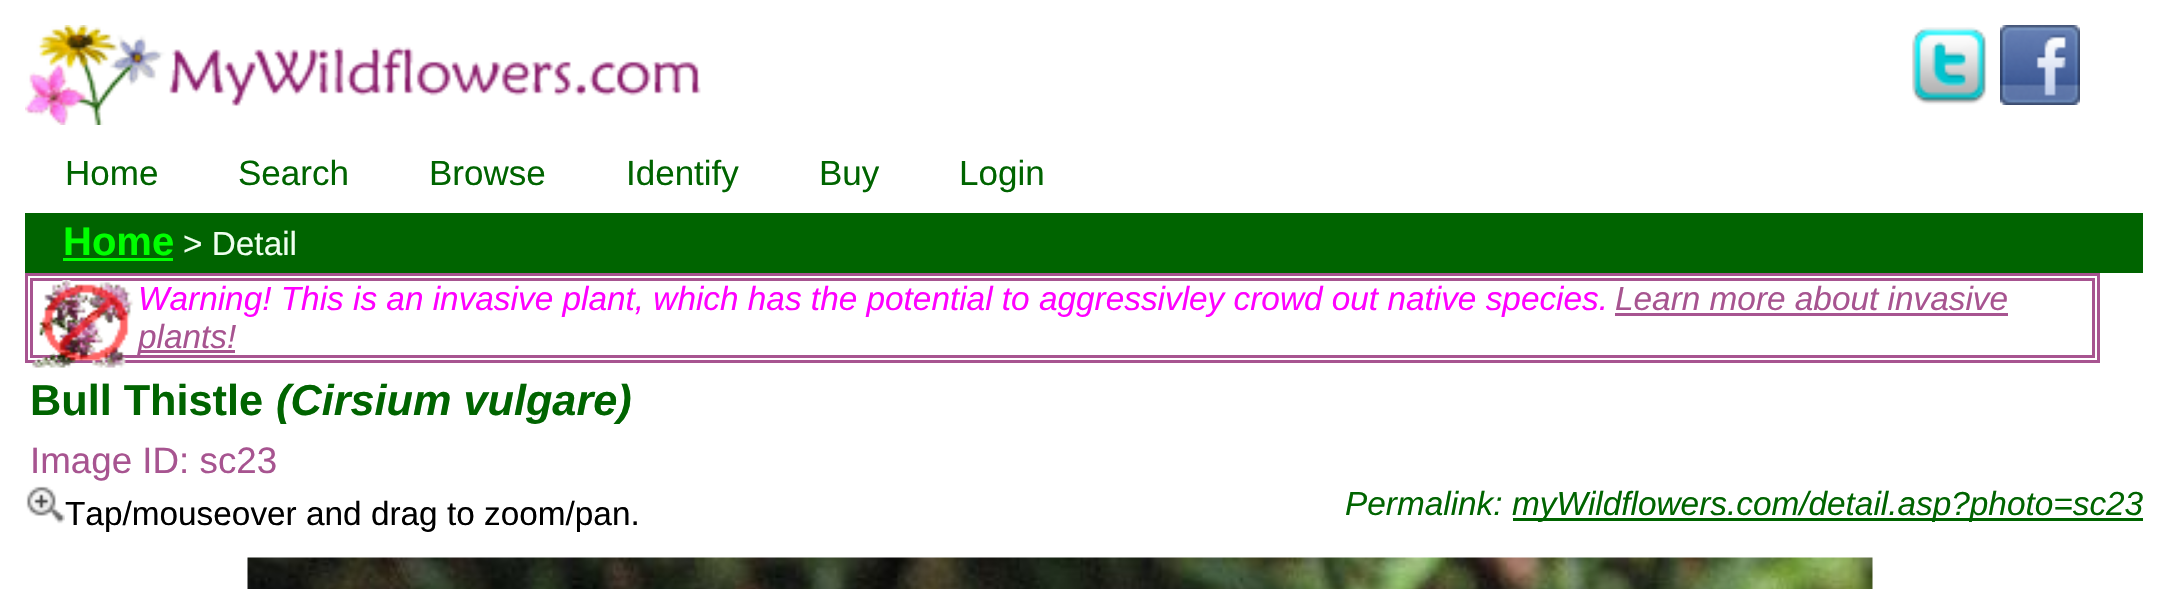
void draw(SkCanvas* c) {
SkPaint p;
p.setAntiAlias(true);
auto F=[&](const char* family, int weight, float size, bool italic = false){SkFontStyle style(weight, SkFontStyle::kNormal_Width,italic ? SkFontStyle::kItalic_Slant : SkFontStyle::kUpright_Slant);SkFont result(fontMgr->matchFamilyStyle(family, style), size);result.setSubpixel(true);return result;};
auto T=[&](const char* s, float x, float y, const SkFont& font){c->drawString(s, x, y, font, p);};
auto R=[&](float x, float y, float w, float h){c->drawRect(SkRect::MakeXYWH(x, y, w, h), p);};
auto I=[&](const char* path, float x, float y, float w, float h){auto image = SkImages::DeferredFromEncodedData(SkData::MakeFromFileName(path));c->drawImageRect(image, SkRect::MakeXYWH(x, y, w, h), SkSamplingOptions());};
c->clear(0xffffffff);
I("1.png",25,25,676,100);
I("2.png",1912,27,75,78);
I("3.png",2000,25,80,80);
auto f1 = F("Liberation Sans",400,35);
p.setColor(0xff006400);
T("Home",65,185,f1);
T("Search",238,185,f1);
T("Browse",429,185,f1);
T("Identify",626,185,f1);
T("Buy",819,185,f1);
T("Login",959,185,f1);
R(25,213,2118,60);
auto f2 = F("Liberation Sans",700,40);
p.setColor(0xff00ff00);
T("Home",63,255,f2);
R(63,258,110,3);
auto f3 = F("Liberation Sans",400,33.35);
p.setColor(0xfff0fff0);
T("> Detail",183,255,f3);
p.setStroke(true);
p.setStrokeWidth(3);
p.setColor(0xffa75490);
c->drawRect(SkRect::MakeXYWH(26.5,274.5,2072,87),p);
c->drawRect(SkRect::MakeXYWH(31.5,279.5,2062,77),p);
I("4.png",32,280,102,88);
auto f4 = F("Liberation Sans",400,33.35,true);
p.setStroke(false);
p.setColor(0xffff00ff);
T("Warning! This is an invasive plant, which has the potential to aggressivley crowd out native species.",138,310,f4);
p.setColor(0xffa75490);
T("Learn more about invasive",1615,310,f4);
R(1615,313,393,3);
R(138,350,97,3);
T("plants!",138,348,f4);
auto f5 = F("Liberation Sans",700,43.25);
p.setColor(0xff006400);
T("Bull Thistle",30,415,f5);
auto f6 = F("Liberation Sans",700,43.25,true);
T("(Cirsium vulgare)",276,415,f6);
auto f7 = F("Liberation Sans",400,36.75);
p.setColor(0xffa75490);
T("Image ID: sc23",30,473,f7);
I("5.png",26,486,39,38);
p.setColor(0xff000000);
T("Tap/mouseover and drag to zoom/pan.",65,525,f3);
p.setColor(0xff006400);
T("Permalink:",1345,515,f4);
R(1513,518,630,3);
T("myWildflowers.com/detail.asp?photo=sc23",1512,515,f4);
I("6.png",247,557,1626,32);
}
